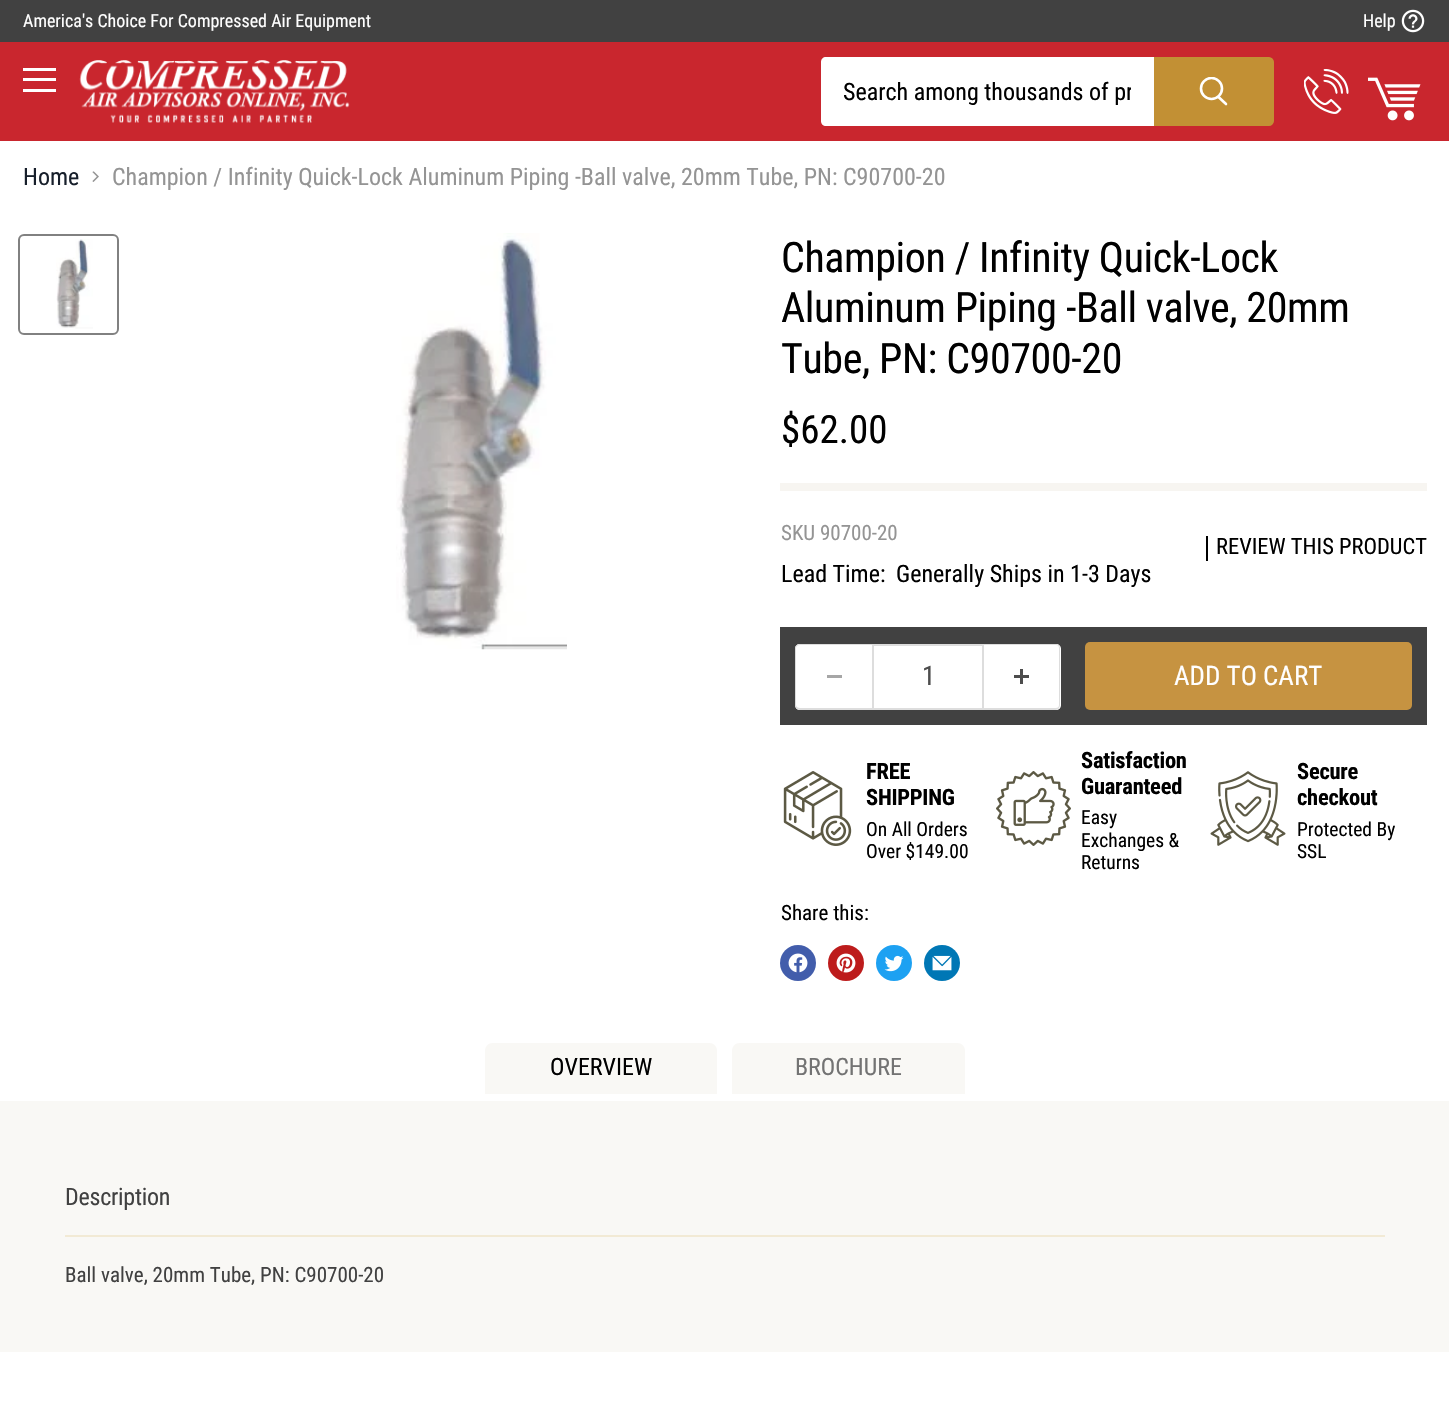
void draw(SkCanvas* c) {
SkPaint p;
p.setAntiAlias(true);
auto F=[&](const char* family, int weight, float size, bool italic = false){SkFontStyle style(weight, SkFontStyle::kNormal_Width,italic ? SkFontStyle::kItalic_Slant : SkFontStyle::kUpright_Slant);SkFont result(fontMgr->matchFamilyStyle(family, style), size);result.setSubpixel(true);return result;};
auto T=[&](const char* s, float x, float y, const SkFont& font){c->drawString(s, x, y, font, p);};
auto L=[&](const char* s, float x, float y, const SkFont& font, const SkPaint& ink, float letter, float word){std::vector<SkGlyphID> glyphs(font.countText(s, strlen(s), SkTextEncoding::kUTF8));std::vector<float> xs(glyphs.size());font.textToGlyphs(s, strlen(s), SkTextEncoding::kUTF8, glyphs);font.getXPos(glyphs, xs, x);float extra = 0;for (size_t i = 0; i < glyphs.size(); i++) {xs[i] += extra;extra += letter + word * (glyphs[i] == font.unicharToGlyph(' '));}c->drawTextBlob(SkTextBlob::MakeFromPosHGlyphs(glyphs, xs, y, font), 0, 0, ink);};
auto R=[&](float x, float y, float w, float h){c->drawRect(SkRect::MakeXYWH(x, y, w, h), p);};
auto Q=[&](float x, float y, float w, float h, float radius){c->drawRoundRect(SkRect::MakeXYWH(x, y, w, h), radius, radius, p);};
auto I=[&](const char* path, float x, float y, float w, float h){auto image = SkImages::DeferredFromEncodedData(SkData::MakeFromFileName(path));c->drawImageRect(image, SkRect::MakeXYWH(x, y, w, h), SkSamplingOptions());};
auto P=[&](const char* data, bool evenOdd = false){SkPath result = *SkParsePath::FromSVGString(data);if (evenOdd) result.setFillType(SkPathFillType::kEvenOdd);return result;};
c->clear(0xffffffff);
p.setColor(0xff414141);
R(0,0,1449,42);
auto f1 = F("Roboto Condensed",400,18);
p.setColor(0xffffffff);
T("America's Choice For Compressed Air Equipment",23,27,f1);
T("Help",1363,27,f1);
I("1.png",1401,9,24,24);
p.setColor(0xffc9262e);
R(0,42,1449,99);
p.setColor(0xffffffff);
R(23,68,33,3);
R(23,78,33,3);
R(23,89,33,3);
I("2.png",79,60,271,63);
c->drawPath(P("M826 57h328v69h-328c-3 0-5-2-5-5v-59c0-3 2-5 5-5z"),p);
c->save();
c->clipRect(SkRect::MakeXYWH(843,78,288,29));
auto f2 = F("Roboto Condensed",400,24);
p.setColor(0xff000000);
T("Search among thousands of pr",843,100,f2);
c->restore();
p.setColor(0xffc29034);
c->drawPath(P("M1155 58h114c2 0 4 2 4 4v59c0 2-2 4-4 4h-114z"),p);
p.setStroke(true);
p.setStrokeWidth(2);
c->drawPath(P("M1155 58h114c2 0 4 2 4 4v59c0 2-2 4-4 4h-114z"),p);
p.setStrokeWidth(2.6);
p.setStrokeCap(SkPaint::kRound_Cap);
p.setColor(0xffffffff);
c->drawPath(P("M1226 104l-7.5-7"),p);
c->save();
c->clipRect(SkRect::MakeXYWH(1199,77,30,31));
p.setStrokeCap(SkPaint::kButt_Cap);
c->drawCircle(1211.5,88.5,10.5,p);
c->restore();
I("3.png",1304,69,45,45);
I("4.png",1368,77,53,44);
p.setStroke(false);
p.setColor(0xff171f2b);
T("Home",23,185,f2);
I("5.png",92,171,7,11);
p.setColor(0xff949494);
T("Champion / Infinity Quick-Lock Aluminum Piping -Ball valve, 20mm Tube, PN: C90700-20",112,185,f2);
p.setStroke(true);
p.setStrokeWidth(2);
p.setColor(0xff818181);
c->drawRoundRect(SkRect::MakeXYWH(19,235,99,99),5,5,p);
I("6.png",56,239,37,90);
I("7.png",396,233,171,417);
auto f3 = F("Roboto Condensed",400,42);
p.setStroke(false);
p.setColor(0xff000000);
L("Champion / Infinity Quick-Lock",781,272,f3,p,-.4,0);
L("Aluminum Piping -Ball valve, 20mm",781,322,f3,p,-.4,0);
L("Tube, PN: C90700-20",781,373,f3,p,-.4,0);
auto f4 = F("Roboto Condensed",400,39);
T("$62.00",781,443,f4);
p.setColor(0xfff7f5f1);
R(780,483,647,8);
auto f5 = F("Roboto Condensed",400,21);
p.setColor(0xff949494);
T("SKU 90700-20",781,540,f5);
p.setColor(0xff000000);
T("Lead Time:",781,582,f2);
T("Generally Ships in 1-3 Days",896,582,f2);
R(1206,536,2,25);
auto f6 = F("Roboto Condensed",400,22.5);
T("REVIEW THIS PRODUCT",1216,554,f6);
p.setColor(0xff414141);
R(780,627,647,98);
p.setColor(0xffffffff);
c->drawPath(P("M800 644h72v66h-72c-3 0-5-2-5-5v-56c0-3 2-5 5-5z"),p);
p.setColor(0xffdddddd);
c->drawPath(P("M800 644h72v66h-72c-3 0-5-3-5-5v-57c0-2 2-4 5-4zm0 1h72v63h-72c-2 0-4-1-4-3v-57c0-2 2-3 4-3z",true),p);
p.setColor(0xffa6a6a6);
R(827,675,15,3);
p.setColor(0xffffffff);
c->drawRect(SkRect::MakeXYWH(873,645,110,64),p);
p.setStroke(true);
p.setColor(0xffdddddd);
c->drawRect(SkRect::MakeXYWH(873,645,110,64),p);
auto f7 = F("Roboto Condensed",400,27);
p.setStroke(false);
p.setColor(0xff4d4d4d);
T("1",922,685,f7);
p.setColor(0xffffffff);
c->drawPath(P("M984 644h72c3 0 5 2 5 5v56c0 3-2 5-5 5h-72z"),p);
p.setColor(0xffdddddd);
c->drawPath(P("M984 644h72c2 0 4 2 4 4v57c0 2-2 5-4 5h-72zm0 1h72c2 0 3 1 3 3v57c0 2-1 3-3 3h-72z",true),p);
I("8.png",1014,669,15,15);
p.setColor(0xffc69341);
Q(1085,642,327,68,5);
p.setColor(0xffffffff);
T("ADD TO CART",1174,685,f7);
I("9.png",783,771,69,75);
auto f8 = F("Roboto Condensed",700,22.5);
p.setColor(0xff000000);
L("FREE",866,779,f8,p,-.25,0);
L("SHIPPING",866,805,f8,p,-.25,0);
auto f9 = F("Roboto Condensed",400,19.5);
T("On All Orders",866,836,f9);
T("Over $149.00",866,858,f9);
I("10.png",996,771,75,75);
L("Satisfaction",1081,768,f8,p,-.25,0);
L("Guaranteed",1081,794,f8,p,-.25,0);
T("Easy",1081,824,f9);
T("Exchanges &",1081,847,f9);
T("Returns",1081,869,f9);
I("11.png",1210,771,76,75);
L("Secure",1297,779,f8,p,-.25,0);
L("checkout",1297,805,f8,p,-.25,0);
T("Protected By",1297,836,f9);
T("SSL",1297,858,f9);
T("Share this:",781,920,f5);
p.setColor(0xff425dab);
c->drawCircle(798,963,18,p);
I("12.png",788,953,20,20);
p.setColor(0xffbd1c1c);
c->drawCircle(846,963,18,p);
I("13.png",836,953,20,20);
p.setColor(0xff1da1f2);
c->drawCircle(894,963,18,p);
I("14.png",884,955,20,17);
p.setColor(0xff0077b5);
c->drawCircle(942,963,18,p);
I("15.png",932,955,20,16);
p.setColor(0xfff9f8f5);
c->drawPath(P("M493 1043h216c4.5 0 8 3.5 8 8v43h-232v-43c0-4.5 3.5-8 8-8z"),p);
p.setColor(0xff000000);
T("OVERVIEW",550,1075,f2);
p.setColor(0xfff9f8f5);
c->drawPath(P("M740 1043h217c4.5 0 8 3.5 8 8v43h-233v-43c0-4.5 3.5-8 8-8z"),p);
p.setColor(0xff737373);
T("BROCHURE",795,1075,f2);
p.setColor(0xfff9f8f5);
R(0,1101,1449,251);
p.setColor(0xfff2ead5);
R(65,1235,1320,2);
p.setColor(0xff414141);
L("Description",65,1205,f2,p,-.25,0);
T("Ball valve, 20mm Tube, PN: C90700-20",65,1282,f5);
}
